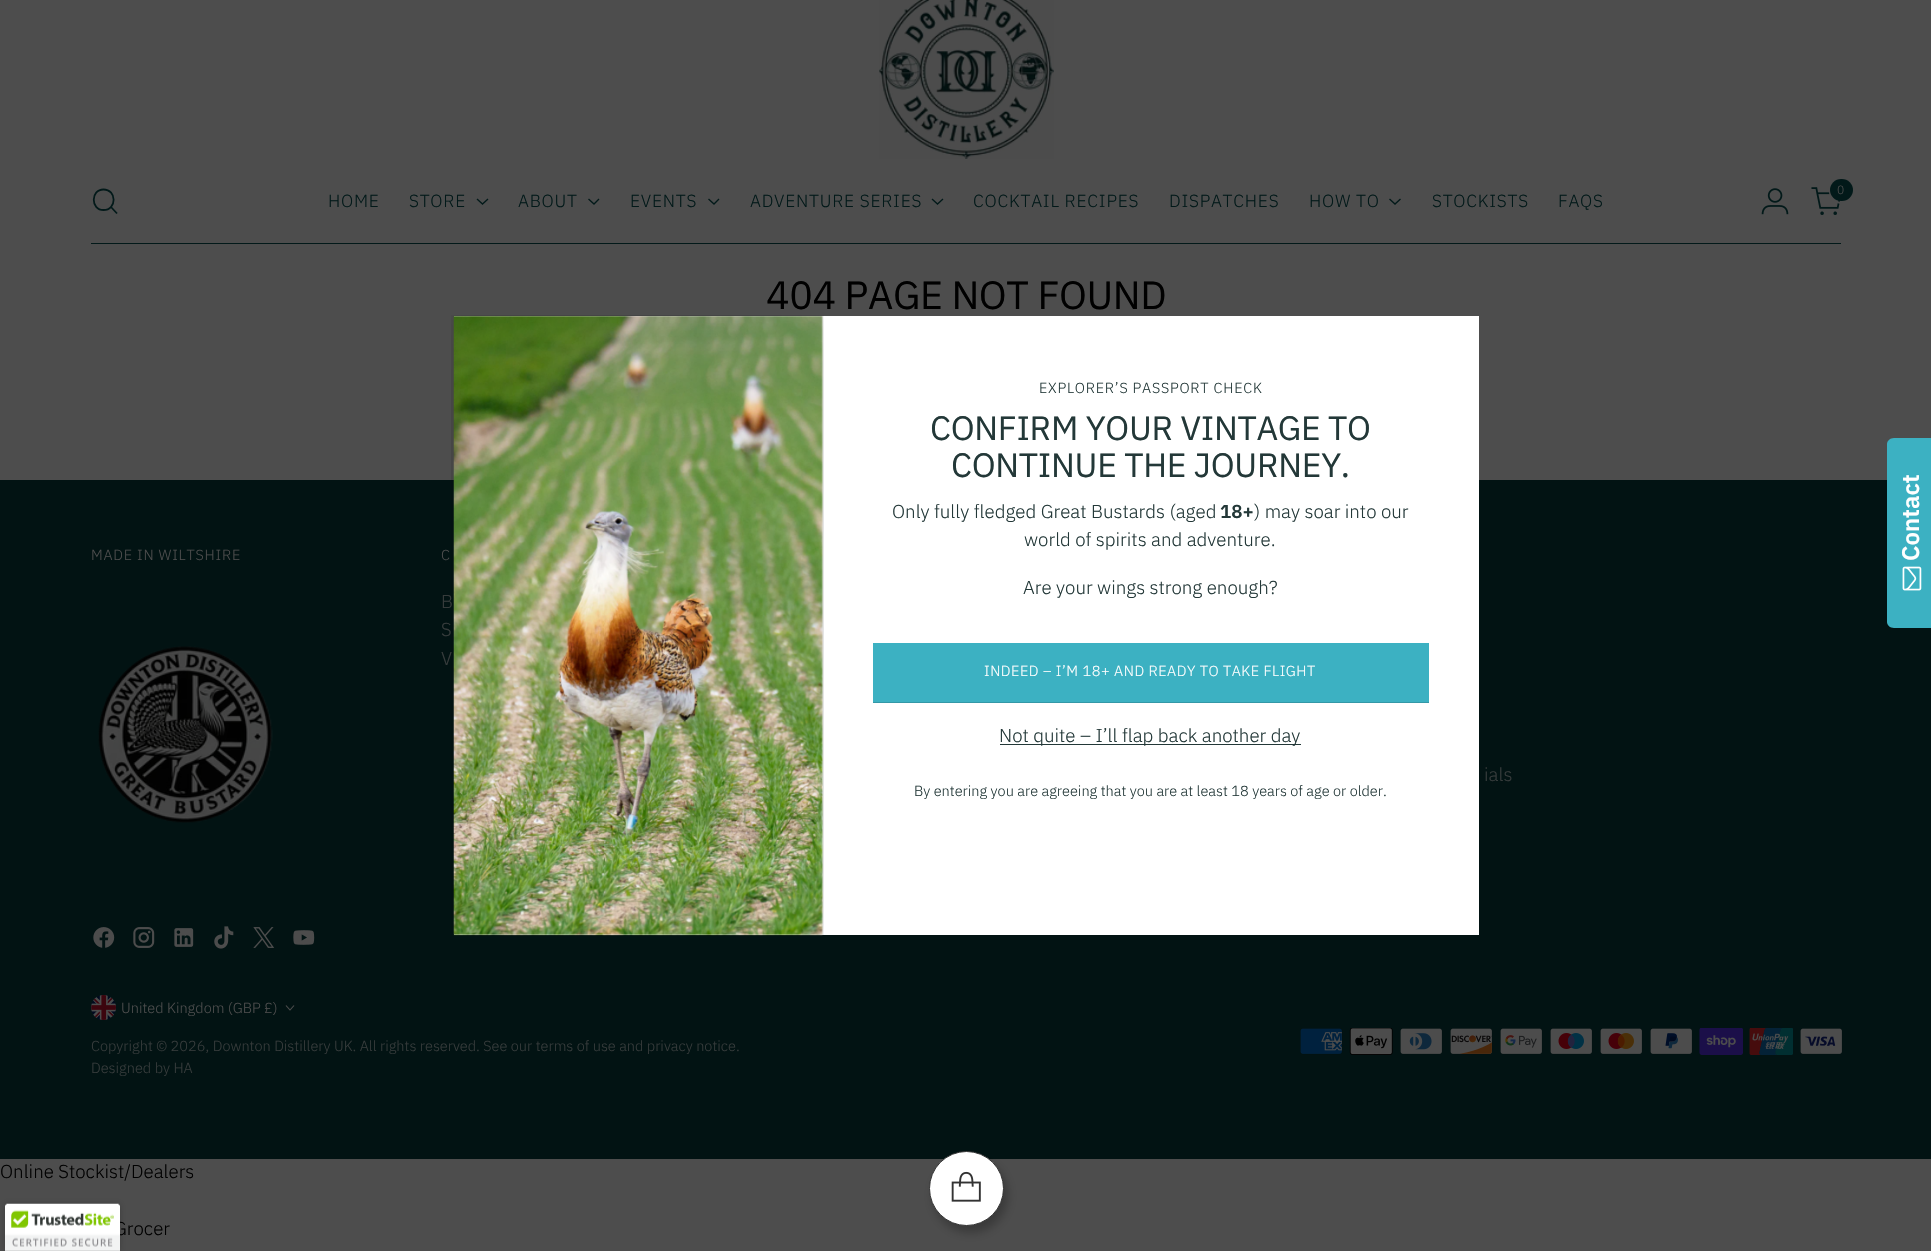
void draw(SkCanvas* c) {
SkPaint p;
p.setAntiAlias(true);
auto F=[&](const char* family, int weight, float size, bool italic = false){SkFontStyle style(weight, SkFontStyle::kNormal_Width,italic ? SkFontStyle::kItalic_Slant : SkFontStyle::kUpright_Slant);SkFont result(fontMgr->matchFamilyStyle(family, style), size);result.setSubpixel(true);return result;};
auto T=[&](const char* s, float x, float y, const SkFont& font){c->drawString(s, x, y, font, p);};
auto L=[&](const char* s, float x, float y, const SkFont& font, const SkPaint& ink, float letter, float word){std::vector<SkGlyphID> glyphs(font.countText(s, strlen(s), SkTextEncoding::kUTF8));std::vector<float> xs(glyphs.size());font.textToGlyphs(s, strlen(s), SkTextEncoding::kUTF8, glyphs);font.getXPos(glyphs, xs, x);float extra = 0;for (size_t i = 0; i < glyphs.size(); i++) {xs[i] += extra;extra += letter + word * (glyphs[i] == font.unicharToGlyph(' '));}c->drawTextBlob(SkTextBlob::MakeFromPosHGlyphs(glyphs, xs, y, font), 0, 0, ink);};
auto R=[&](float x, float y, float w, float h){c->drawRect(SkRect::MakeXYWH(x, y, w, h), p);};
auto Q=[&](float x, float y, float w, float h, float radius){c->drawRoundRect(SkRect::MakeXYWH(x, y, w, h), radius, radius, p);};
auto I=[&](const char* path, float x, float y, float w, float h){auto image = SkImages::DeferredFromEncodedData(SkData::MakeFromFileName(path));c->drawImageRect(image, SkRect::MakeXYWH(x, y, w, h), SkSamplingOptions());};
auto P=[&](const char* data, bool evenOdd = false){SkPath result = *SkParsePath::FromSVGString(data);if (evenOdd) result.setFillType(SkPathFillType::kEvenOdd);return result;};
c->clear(0xff4d4d4d);
p.setColor(0xff021919);
R(91,243,1750,1);
I("1.png",879,0,175,159);
p.setStroke(true);
p.setStrokeWidth(1.8);
p.setStrokeCap(SkPaint::kRound_Cap);
c->drawPath(P("M103.5 210c13.5 0 13.5-20.5 0-20.5c-13 0-13 20.5 0 20.5z"),p);
p.setStrokeCap(SkPaint::kButt_Cap);
c->drawPath(P("M111 207l6 6.5"),p);
auto f1 = F("IBM Plex Sans",300,17.5);
p.setStroke(false);
L("HOME",328,207,f1,p,.75,0);
L("STORE",409,207,f1,p,.75,0);
p.setStroke(true);
p.setStrokeWidth(1.4);
c->drawPath(P("M477 199l5.5 5l5.5-5"),p);
p.setStroke(false);
L("ABOUT",518,207,f1,p,.75,0);
p.setStroke(true);
c->drawPath(P("M588.5 199l5.5 5l5-5"),p);
p.setStroke(false);
L("EVENTS",630,207,f1,p,.75,0);
p.setStroke(true);
c->drawPath(P("M708.5 199l5.5 5l5-5"),p);
p.setStroke(false);
L("ADVENTURE SERIES",750,207,f1,p,.75,0);
p.setStroke(true);
c->drawPath(P("M932 199l5.5 5l5.5-5"),p);
p.setStroke(false);
L("COCKTAIL RECIPES",973,207,f1,p,.75,0);
L("DISPATCHES",1169,207,f1,p,.75,0);
L("HOW TO",1309,207,f1,p,.75,0);
p.setStroke(true);
c->drawPath(P("M1389.5 199l5.5 5l5.5-5"),p);
p.setStroke(false);
L("STOCKISTS",1432,207,f1,p,.75,0);
L("FAQS",1558,207,f1,p,.75,0);
I("2.png",1761,188,28,27);
I("3.png",1811,187,30,28);
p.setStroke(true);
p.setStrokeWidth(2);
p.setColor(0xff4d4d4d);
c->drawCircle(1842,191,12,p);
p.setStroke(false);
p.setColor(0xff021919);
Q(1830,179,23,22,11);
auto f2 = F("IBM Plex Sans",300,12);
p.setColor(0xff4d4d4d);
T("0",1837,194,f2);
auto f3 = F("IBM Plex Sans",400,39.4);
p.setColor(0xff000000);
L("404 PAGE NOT FOUND",766,309,f3,p,-.4,0);
p.setColor(0xff021313);
R(0,480,1931,679);
p.setColor(0xffffffff);
R(454,316,1025,619);
auto f4 = F("IBM Plex Sans",300,18.75);
p.setColor(0xff363b3b);
T("B",441,608,f4);
T("V",441,665,f4);
I("4.png",451,315,373,621);
auto f5 = F("IBM Plex Sans",300,14.55);
p.setColor(0xff233838);
L("EXPLORER’S PASSPORT CHECK",1039,393,f5,p,.75,0);
auto f6 = F("IBM Plex Sans",400,33.75);
L("CONFIRM YOUR VINTAGE TO",930,440,f6,p,-.3,0);
L("CONTINUE THE JOURNEY.",951,477,f6,p,-.3,0);
T("Only fully fledged Great Bustards (aged",892,518,f4);
auto f7 = F("IBM Plex Sans",600,18.75);
T("18+",1220,518,f7);
T(") may soar into our",1254,518,f4);
T("world of spirits and adventure.",1024,546,f4);
T("Are your wings strong enough?",1023,594,f4);
c->save();
c->clipRect(SkRect::MakeXYWH(873,643,556,60));
p.setColor(0xff3cb1c2);
c->drawPath(P("M744 642h778l35 60h-779z"),p);
c->restore();
p.setColor(0xffffffff);
L("INDEED – I’M 18+ AND READY TO TAKE FLIGHT",984,676,f5,p,.5,0);
p.setColor(0xff3498a7);
R(873,702,556,1);
p.setColor(0xff233838);
R(1000,744,301,1);
T("Not quite – I’ll flap back another day",999,742,f4);
T("By entering you are agreeing that you are at least 18 years of age or older.",914,796,f5);
p.setColor(0xff4d4d4d);
L("MADE IN WILTSHIRE",91,560,f5,p,.75,0);
I("5.png",98,646,175,177);
I("6.png",93,927,22,21);
I("7.png",133,927,22,21);
I("8.png",174,928,20,19);
I("9.png",214,926,20,23);
I("10.png",253,927,22,21);
I("11.png",293,930,22,15);
L("C",441,560,f5,p,.75,0);
p.setColor(0xff363b3b);
T("S",441,636,f4);
T("ials",1484,781,f4);
I("12.png",91,995,25,25);
p.setColor(0xff4d4d4d);
T("United Kingdom (GBP £)",121,1013,f5);
p.setStroke(true);
p.setStrokeWidth(1.1);
c->drawPath(P("M286 1005.5l4 4.5l4-4.5"),p);
p.setStroke(false);
p.setColor(0xff363b3b);
T("Copyright © 2026, Downton Distillery UK. All rights reserved. See our terms of use and privacy notice.",91,1051,f5);
T("Designed by HA",91,1073,f5);
I("13.png",1300,1028,43,27);
I("14.png",1349,1028,44,27);
I("15.png",1400,1028,43,27);
I("16.png",1450,1028,43,27);
I("17.png",1500,1028,43,27);
I("18.png",1550,1028,43,27);
I("19.png",1600,1028,43,27);
I("20.png",1650,1028,43,27);
I("21.png",1699,1028,44,27);
I("22.png",1749,1028,44,27);
I("23.png",1800,1028,43,27);
p.setColor(0xff3cb1c2);
c->drawPath(P("M1887 622v-178c0-3 3-6 7-6h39v190h-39c-4 0-7-3-7-6z"),p);
auto f8 = F("IBM Plex Sans",600,24);
p.setColor(0xffffffff);
c->save();
c->rotate(-90,1919,561);
T("Contact",1919,561,f8);
c->restore();
I("24.png",1902,566,20,25);
p.setColor(0xff000000);
T("Online Stockist/Dealers",0,1178,f4);
T("Grocer",114,1235,f4);
p.setColor(0x40000000);
p.setMaskFilter(SkMaskFilter::MakeBlur(kNormal_SkBlurStyle, 5));
c->drawRoundRect(SkRect::MakeXYWH(933,1158,75,75),37.5,37.5,p);
p.setMaskFilter(nullptr);
p.setColor(0xffffffff);
c->drawCircle(966.5,1188.5,37,p);
p.setStroke(true);
p.setStrokeWidth(1);
p.setColor(0xff333333);
c->drawCircle(966.5,1188.5,37,p);
I("25.png",951,1171,30,31);
p.setStroke(false);
p.setColor(0x33000000);
p.setMaskFilter(SkMaskFilter::MakeBlur(kNormal_SkBlurStyle, 3));
c->drawRoundRect(SkRect::MakeXYWH(5,1204,115,47),2.5,2.5,p);
p.setMaskFilter(nullptr);
I("26.png",5,1203,115,48);
}
